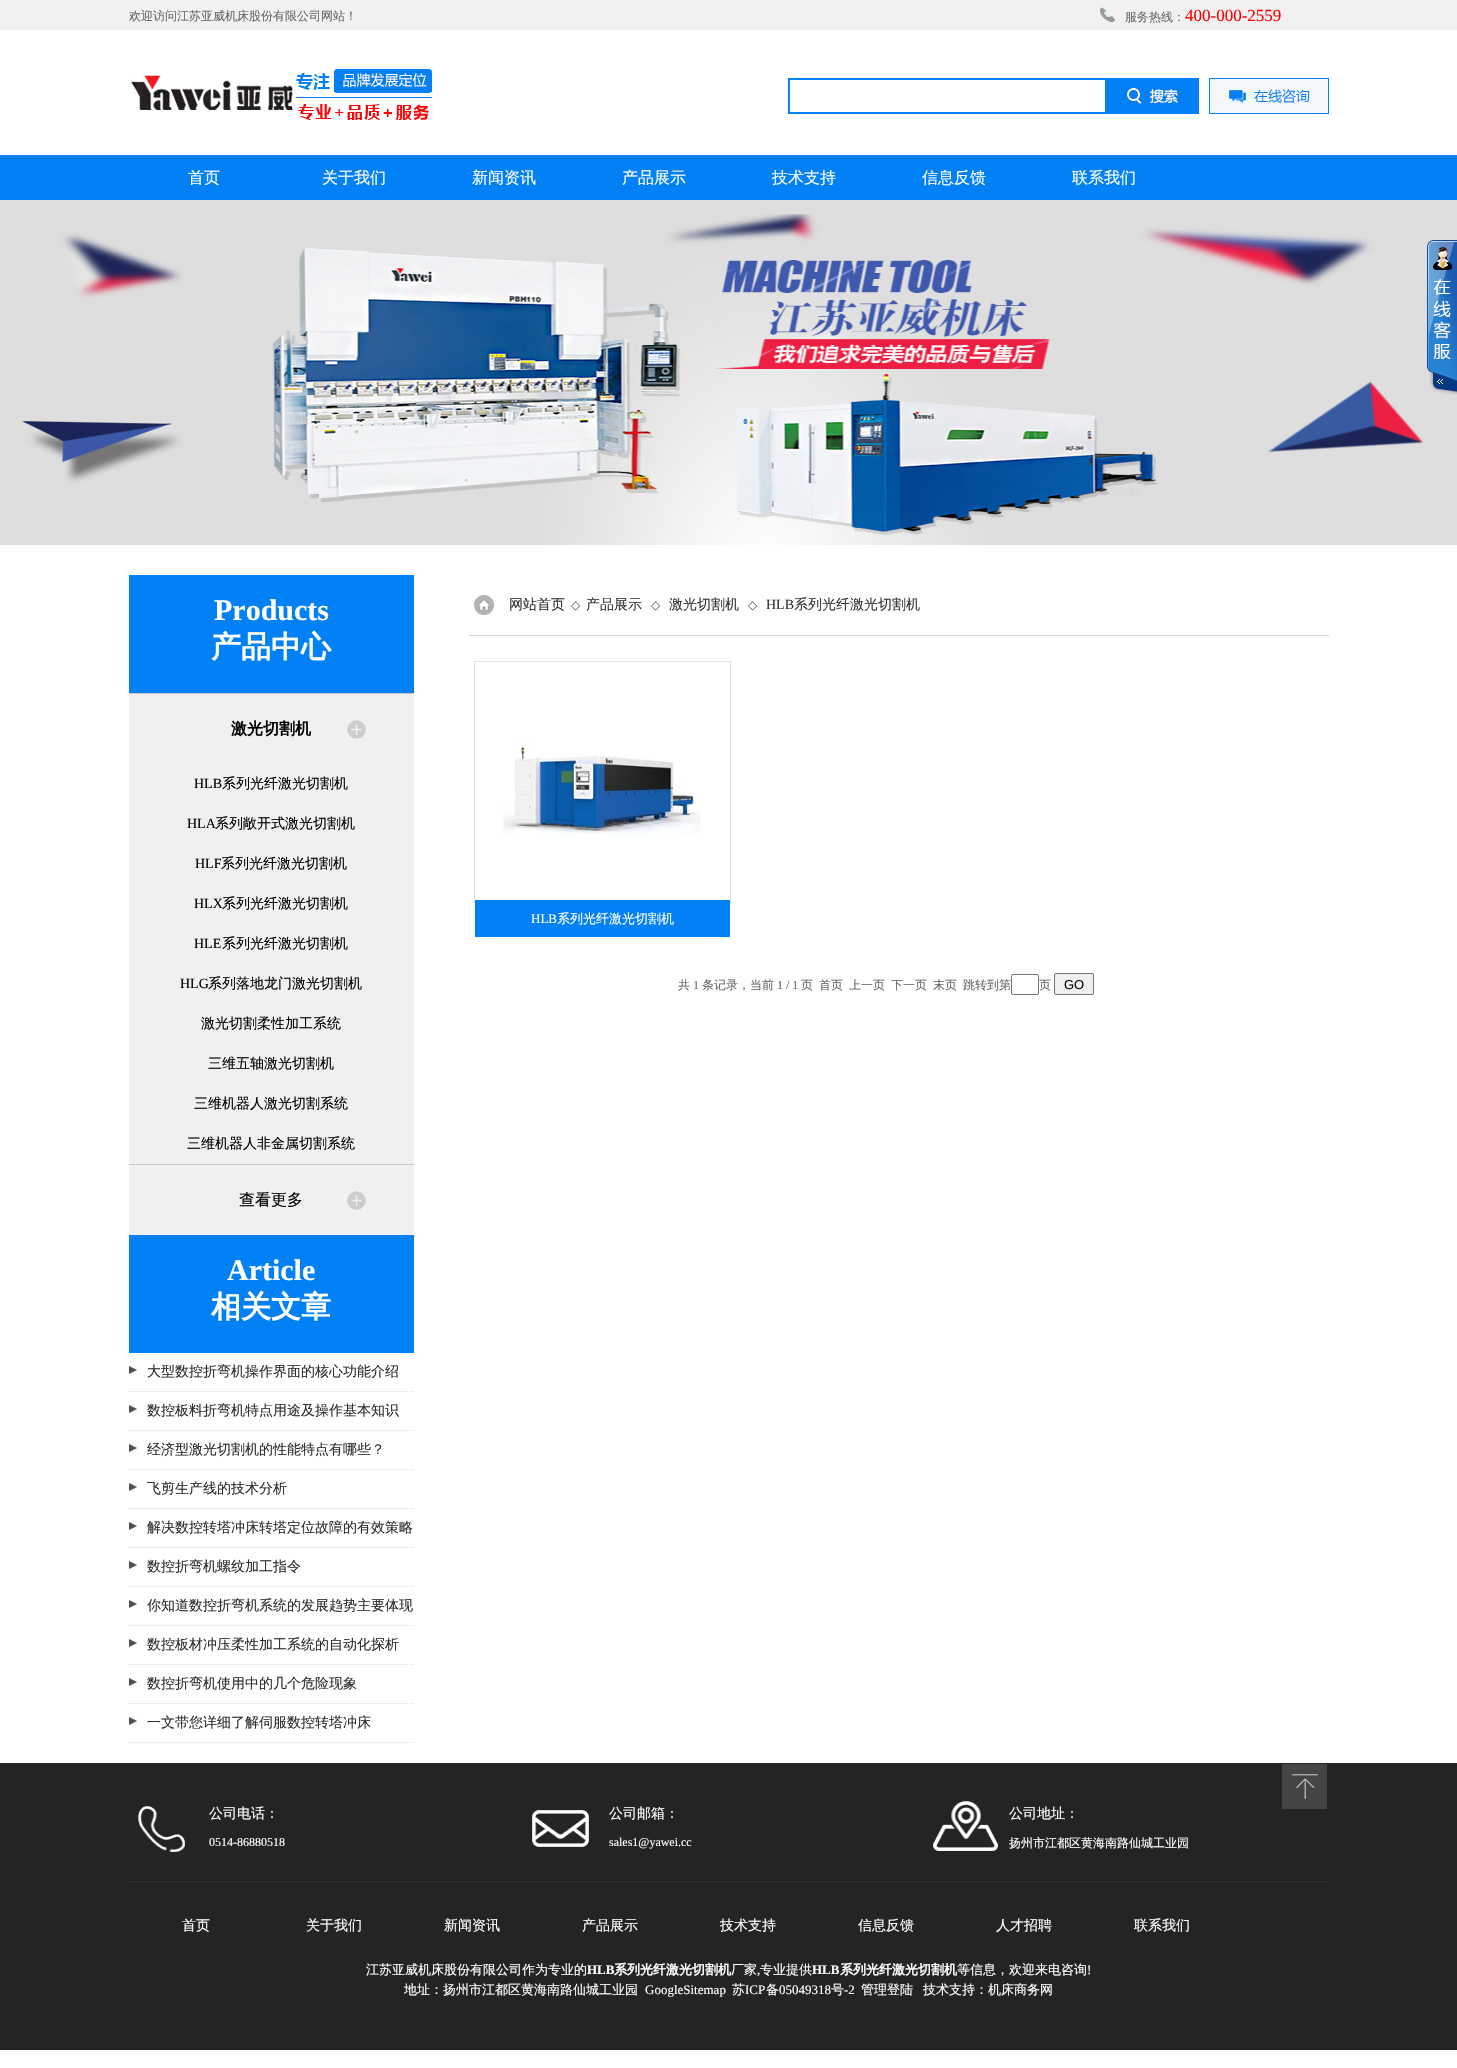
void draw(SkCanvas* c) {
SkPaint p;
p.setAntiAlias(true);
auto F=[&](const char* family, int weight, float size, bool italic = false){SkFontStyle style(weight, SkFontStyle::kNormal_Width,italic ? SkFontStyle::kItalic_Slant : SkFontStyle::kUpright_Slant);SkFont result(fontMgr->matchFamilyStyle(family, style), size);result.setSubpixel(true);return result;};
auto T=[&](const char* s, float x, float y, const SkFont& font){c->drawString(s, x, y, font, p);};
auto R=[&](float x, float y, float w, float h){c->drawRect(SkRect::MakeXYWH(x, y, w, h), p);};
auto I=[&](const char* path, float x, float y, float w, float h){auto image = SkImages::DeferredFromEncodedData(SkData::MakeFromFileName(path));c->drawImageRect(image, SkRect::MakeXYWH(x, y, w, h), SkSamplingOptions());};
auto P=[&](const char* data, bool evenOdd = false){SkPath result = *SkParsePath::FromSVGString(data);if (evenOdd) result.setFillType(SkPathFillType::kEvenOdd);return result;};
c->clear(0xffffffff);
p.setColor(0xfff1f1f1);
R(0,0,1457,30);
auto f1 = F("WenQuanYi Zen Hei",500,12);
p.setColor(0xff666666);
T("欢迎访问江苏亚威机床股份有限公司网站！",129,20,f1);
I("1.png",1100,7,15,15);
T("服务热线：",1125,21,f1);
auto f2 = F("Liberation Serif",400,17);
p.setColor(0xffff0000);
T("400-000-2559",1185,21,f2);
I("2.png",131,69,301,51);
p.setColor(0xff0084ff);
R(788,78,317,2);
R(788,112,317,2);
R(788,78,2,36);
I("3.png",1105,78,94,36);
I("4.png",1209,78,120,36);
p.setColor(0xff0280f6);
R(0,155,1457,45);
auto f3 = F("WenQuanYi Zen Hei",500,16);
p.setColor(0xffffffff);
T("首页",188,183,f3);
T("关于我们",322,183,f3);
T("新闻资讯",472,183,f3);
T("产品展示",622,183,f3);
T("技术支持",772,183,f3);
T("信息反馈",922,183,f3);
T("联系我们",1072,183,f3);
I("5.png",0,200,1457,345);
I("6.png",1427,240,30,155);
p.setColor(0xff0280f6);
R(129,575,285,118);
auto f4 = F("Liberation Serif",700,30);
p.setColor(0xffffffff);
T("Products",214,620,f4);
auto f5 = F("WenQuanYi Zen Hei",700,30);
T("产品中心",211,657,f5);
p.setColor(0xffc8c8c8);
R(129,693,285,1);
p.setColor(0xfff0f0f0);
R(129,694,285,470);
I("7.png",347,720,19,19);
auto f6 = F("WenQuanYi Zen Hei",700,16);
p.setColor(0xff000000);
T("激光切割机",231,734,f6);
auto f7 = F("Liberation Serif",400,14);
T("HLB",194,788,f7);
auto f8 = F("WenQuanYi Zen Hei",500,14);
T("系列光纤激光切割机",222,788,f8);
T("HLA",187,828,f7);
T("系列敞开式激光切割机",215,828,f8);
T("HLF",195,868,f7);
T("系列光纤激光切割机",221,868,f8);
T("HLX",194,908,f7);
T("系列光纤激光切割机",222,908,f8);
T("HLE",194,948,f7);
T("系列光纤激光切割机",222,948,f8);
T("HLG",180,988,f7);
T("系列落地龙门激光切割机",208,988,f8);
T("激光切割柔性加工系统",201,1028,f8);
T("三维五轴激光切割机",208,1068,f8);
T("三维机器人激光切割系统",194,1108,f8);
T("三维机器人非金属切割系统",187,1148,f8);
p.setColor(0xffc8c8c8);
R(129,1164,285,1);
p.setColor(0xfff0f0f0);
R(129,1165,285,70);
I("7.png",347,1191,19,19);
p.setColor(0xff000000);
T("查看更多",239,1205,f3);
p.setColor(0xff0280f6);
R(129,1235,285,118);
p.setColor(0xffffffff);
T("Article",227,1280,f4);
T("相关文章",211,1317,f5);
I("8.png",129,1366,8,8);
p.setStroke(true);
p.setStrokeWidth(1);
p.setColor(0xffdddddd);
p.setPathEffect(SkDashPathEffect::Make({{1,1}}, 0));
c->drawPath(P("M129 1391.5h285"),p);
p.setPathEffect(nullptr);
p.setStroke(false);
p.setColor(0xff2c2c2c);
T("大型数控折弯机操作界面的核心功能介绍",147,1376,f8);
I("8.png",129,1405,8,8);
p.setStroke(true);
p.setColor(0xffdddddd);
p.setPathEffect(SkDashPathEffect::Make({{1,1}}, 0));
c->drawPath(P("M129 1430.5h285"),p);
p.setPathEffect(nullptr);
p.setStroke(false);
p.setColor(0xff2c2c2c);
T("数控板料折弯机特点用途及操作基本知识",147,1415,f8);
I("8.png",129,1444,8,8);
p.setStroke(true);
p.setColor(0xffdddddd);
p.setPathEffect(SkDashPathEffect::Make({{1,1}}, 0));
c->drawPath(P("M129 1469.5h285"),p);
p.setPathEffect(nullptr);
p.setStroke(false);
p.setColor(0xff2c2c2c);
T("经济型激光切割机的性能特点有哪些？",147,1454,f8);
I("8.png",129,1483,8,8);
p.setStroke(true);
p.setColor(0xffdddddd);
p.setPathEffect(SkDashPathEffect::Make({{1,1}}, 0));
c->drawPath(P("M129 1508.5h285"),p);
p.setPathEffect(nullptr);
p.setStroke(false);
p.setColor(0xff2c2c2c);
T("飞剪生产线的技术分析",147,1493,f8);
I("8.png",129,1522,8,8);
p.setStroke(true);
p.setColor(0xffdddddd);
p.setPathEffect(SkDashPathEffect::Make({{1,1}}, 0));
c->drawPath(P("M129 1547.5h285"),p);
p.setPathEffect(nullptr);
p.setStroke(false);
p.setColor(0xff2c2c2c);
T("解决数控转塔冲床转塔定位故障的有效策略",147,1532,f8);
I("8.png",129,1561,8,8);
p.setStroke(true);
p.setColor(0xffdddddd);
p.setPathEffect(SkDashPathEffect::Make({{1,1}}, 0));
c->drawPath(P("M129 1586.5h285"),p);
p.setPathEffect(nullptr);
p.setStroke(false);
p.setColor(0xff2c2c2c);
T("数控折弯机螺纹加工指令",147,1571,f8);
I("8.png",129,1600,8,8);
p.setStroke(true);
p.setColor(0xffdddddd);
p.setPathEffect(SkDashPathEffect::Make({{1,1}}, 0));
c->drawPath(P("M129 1625.5h285"),p);
p.setPathEffect(nullptr);
p.setStroke(false);
p.setColor(0xff2c2c2c);
T("你知道数控折弯机系统的发展趋势主要体现",147,1610,f8);
I("8.png",129,1639,8,8);
p.setStroke(true);
p.setColor(0xffdddddd);
p.setPathEffect(SkDashPathEffect::Make({{1,1}}, 0));
c->drawPath(P("M129 1664.5h285"),p);
p.setPathEffect(nullptr);
p.setStroke(false);
p.setColor(0xff2c2c2c);
T("数控板材冲压柔性加工系统的自动化探析",147,1649,f8);
I("8.png",129,1678,8,8);
p.setStroke(true);
p.setColor(0xffdddddd);
p.setPathEffect(SkDashPathEffect::Make({{1,1}}, 0));
c->drawPath(P("M129 1703.5h285"),p);
p.setPathEffect(nullptr);
p.setStroke(false);
p.setColor(0xff2c2c2c);
T("数控折弯机使用中的几个危险现象",147,1688,f8);
I("8.png",129,1717,8,8);
p.setStroke(true);
p.setColor(0xffdddddd);
p.setPathEffect(SkDashPathEffect::Make({{1,1}}, 0));
c->drawPath(P("M129 1742.5h285"),p);
p.setPathEffect(nullptr);
p.setStroke(false);
p.setColor(0xff2c2c2c);
T("一文带您详细了解伺服数控转塔冲床",147,1727,f8);
p.setColor(0xffd9d9d9);
R(469,635,860,1);
I("9.png",474,595,20,20);
p.setColor(0xff333333);
T("网站首页",509,609,f8);
auto f9 = F("DejaVu Sans",400,12);
p.setColor(0xff666666);
T("◇",571,609,f9);
p.setColor(0xff333333);
T("产品展示",586,609,f8);
p.setColor(0xff666666);
T("◇",651,609,f9);
p.setColor(0xff333333);
T("激光切割机",669,609,f8);
p.setColor(0xff666666);
T("◇",748,609,f9);
p.setColor(0xff333333);
T("HLB",766,609,f7);
T("系列光纤激光切割机",794,609,f8);
p.setStroke(true);
p.setColor(0xffe2e2e2);
c->drawRect(SkRect::MakeXYWH(474.5,661.5,256,241),p);
I("10.png",502,741,199,96);
p.setStroke(false);
p.setColor(0xff0281f6);
R(475,900,255,37);
auto f10 = F("Liberation Serif",400,13);
p.setColor(0xffffffff);
T("HLB",531,923,f10);
auto f11 = F("WenQuanYi Zen Hei",500,13);
T("系列光纤激光切割机",557,923,f11);
p.setColor(0xff666666);
T("共",678,989,f1);
auto f12 = F("Liberation Serif",400,12);
T("1",693,989,f12);
T("条记录，当前",702,989,f1);
T("1 / 1",777,989,f12);
T("页",801,989,f1);
T("首页",819,989,f1);
T("上一页",849,989,f1);
T("下一页",891,989,f1);
T("末页",933,989,f1);
T("跳转到第",963,989,f1);
p.setStroke(true);
p.setColor(0xff767676);
c->drawRoundRect(SkRect::MakeXYWH(1011.5,974.5,27,20),1.5,1.5,p);
p.setStroke(false);
p.setColor(0xff666666);
T("页",1039,989,f1);
p.setColor(0xffefefef);
c->drawRoundRect(SkRect::MakeXYWH(1054.5,973.5,39,21),1.5,1.5,p);
p.setStroke(true);
p.setColor(0xff767676);
c->drawRoundRect(SkRect::MakeXYWH(1054.5,973.5,39,21),1.5,1.5,p);
auto f13 = F("Liberation Sans",400,13);
p.setStroke(false);
p.setColor(0xff000000);
T("GO",1064,989,f13);
p.setColor(0xff252324);
R(0,1763,1457,287);
I("11.png",1282,1764,45,45);
p.setColor(0xff1e1e1e);
R(129,1880,1200,1);
I("12.png",138,1806,47,46);
p.setColor(0xffffffff);
T("公司电话：",209,1818,f8);
T("0514-86880518",209,1846,f12);
I("13.png",532,1810,57,37);
T("公司邮箱：",609,1818,f8);
T("sales1@yawei.cc",609,1846,f12);
I("14.png",933,1801,65,50);
T("公司地址：",1009,1818,f8);
T("扬州市江都区黄海南路仙城工业园",1009,1847,f1);
p.setColor(0xff313131);
R(129,1881,1200,1);
p.setColor(0xffffffff);
T("首页",182,1930,f8);
T("关于我们",306,1930,f8);
T("新闻资讯",444,1930,f8);
T("产品展示",582,1930,f8);
T("技术支持",720,1930,f8);
T("信息反馈",858,1930,f8);
T("人才招聘",996,1930,f8);
T("联系我们",1134,1930,f8);
T("江苏亚威机床股份有限公司作为专业的",366,1974,f11);
auto f14 = F("Liberation Serif",700,13);
T("HLB",587,1974,f14);
auto f15 = F("WenQuanYi Zen Hei",700,13);
T("系列光纤激光切割机",614,1974,f15);
T("厂家",731,1974,f11);
T(",",757,1974,f10);
T("专业提供",760,1974,f11);
T("HLB",812,1974,f14);
T("系列光纤激光切割机",840,1974,f15);
T("等信息，欢迎来电咨询",957,1974,f11);
T("!",1087,1974,f10);
T("地址：扬州市江都区黄海南路仙城工业园",404,1994,f11);
T("GoogleSitemap",645,1994,f10);
T("苏",732,1994,f11);
T("ICP",745,1994,f10);
T("备",766,1994,f11);
T("05049318",779,1994,f10);
T("号",831,1994,f11);
T("-2",844,1994,f10);
T("管理登陆",861,1994,f11);
T("技术支持：机床商务网",923,1994,f11);
}
